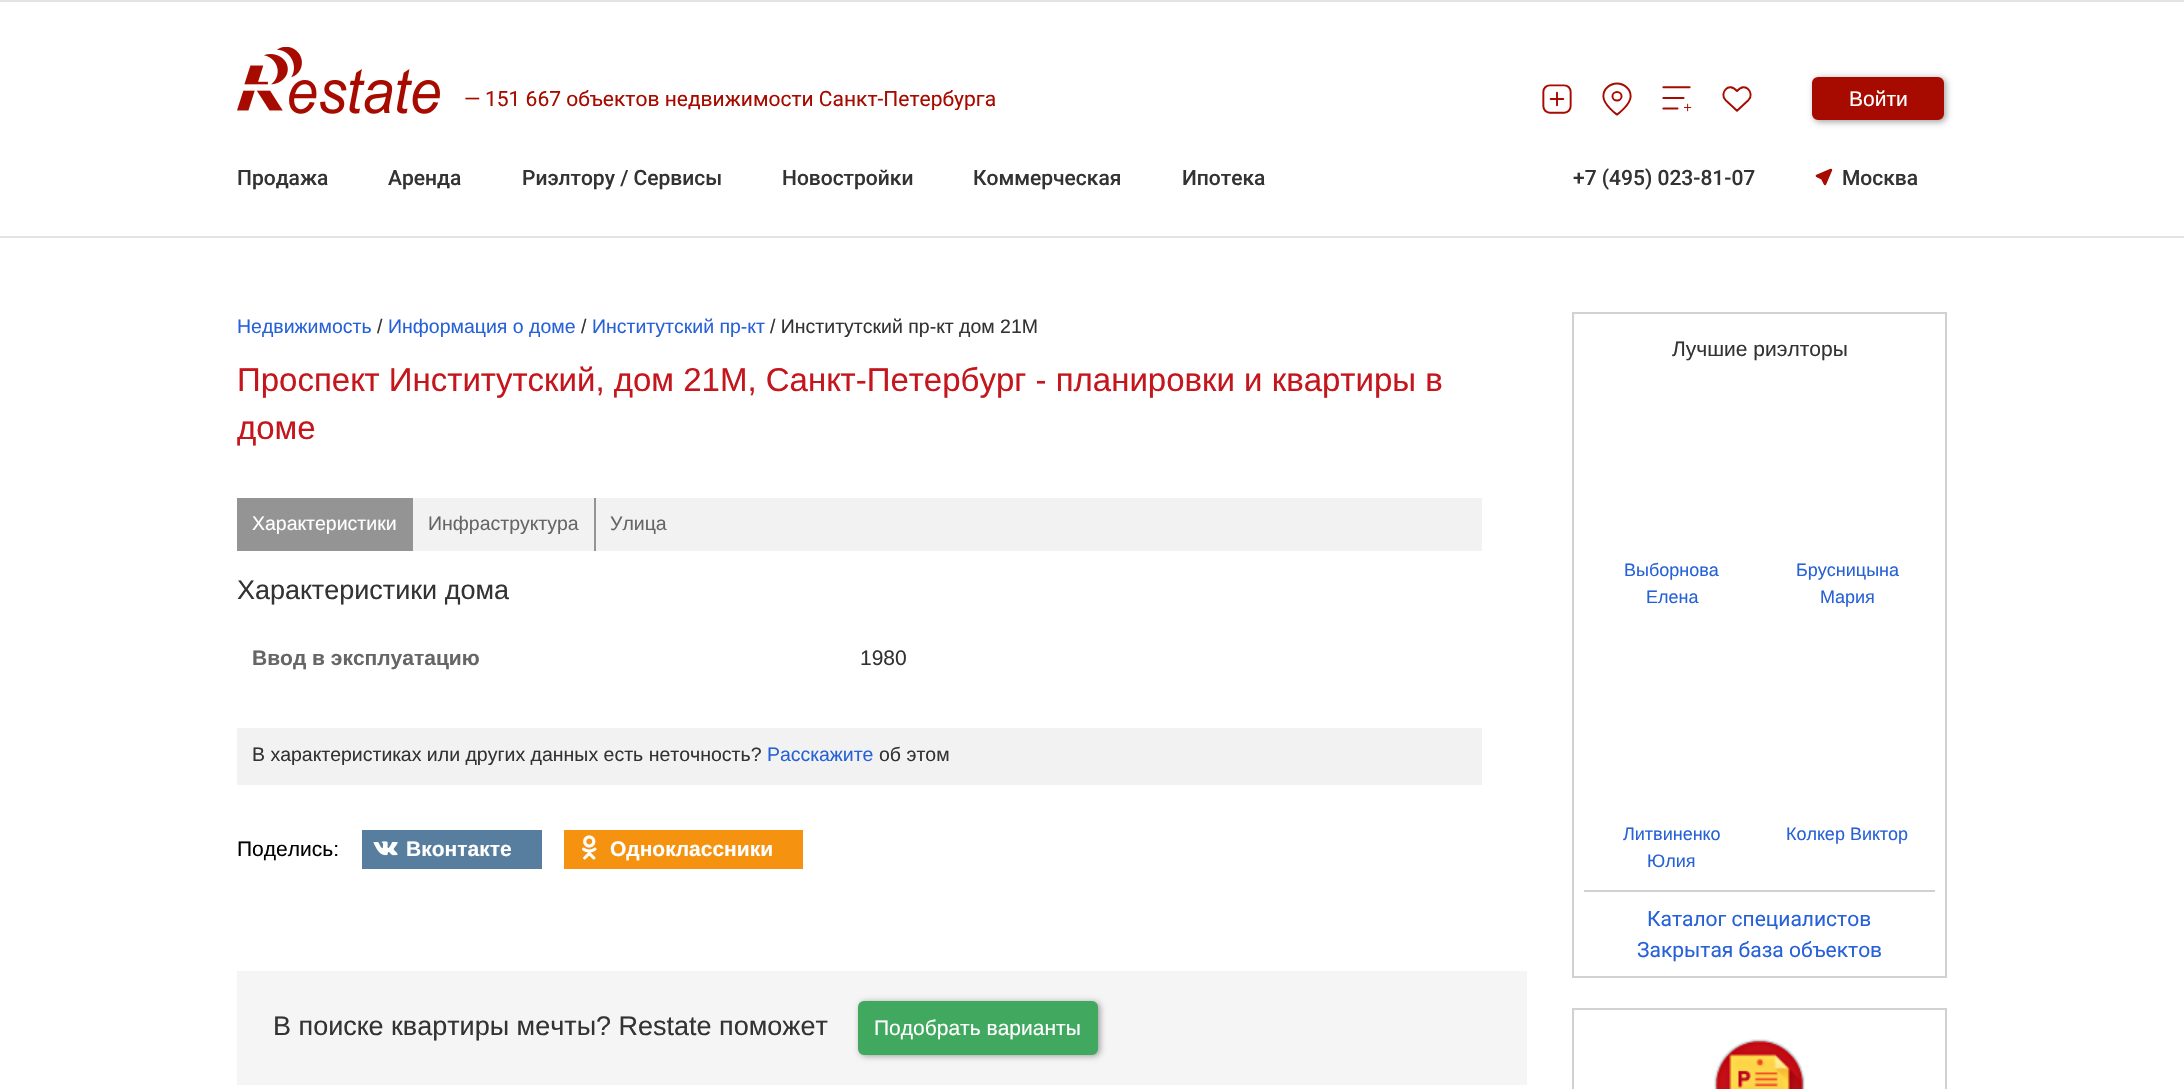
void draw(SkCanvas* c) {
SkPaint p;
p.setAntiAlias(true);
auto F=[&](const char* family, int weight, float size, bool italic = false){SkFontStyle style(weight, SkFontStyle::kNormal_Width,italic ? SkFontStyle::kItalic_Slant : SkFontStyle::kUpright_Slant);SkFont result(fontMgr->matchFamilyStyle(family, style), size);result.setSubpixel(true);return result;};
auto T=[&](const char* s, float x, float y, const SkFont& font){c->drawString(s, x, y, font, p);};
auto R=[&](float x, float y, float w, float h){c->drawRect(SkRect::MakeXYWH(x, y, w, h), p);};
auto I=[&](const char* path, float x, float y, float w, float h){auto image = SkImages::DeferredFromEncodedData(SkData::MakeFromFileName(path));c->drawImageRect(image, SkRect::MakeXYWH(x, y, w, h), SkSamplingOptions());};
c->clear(0xffffffff);
p.setColor(0xffe3e3e3);
R(0,0,2184,2);
R(0,236,2184,2);
I("1.png",237,47,203,67);
auto f1 = F("Roboto",400,21);
p.setColor(0xffa70b00);
T("—",464,106,f1);
c->save();
c->clipRect(SkRect::MakeXYWH(464,89,532,21));
T("151 667 объектов недвижимости Санкт-Петербурга",485,106,f1);
c->restore();
I("2.png",1542,84,30,30);
I("3.png",1602,82,30,34);
I("4.png",1662,86,30,26);
I("5.png",1722,86,30,26);
p.setColor(0x5c000000);
p.setMaskFilter(SkMaskFilter::MakeBlur(kNormal_SkBlurStyle, 3));
c->drawRoundRect(SkRect::MakeXYWH(1814,78,132,44),6,6,p);
p.setMaskFilter(nullptr);
p.setColor(0xffa70b00);
c->drawRoundRect(SkRect::MakeXYWH(1813,78,130,41),5,5,p);
p.setStroke(true);
p.setStrokeWidth(2);
c->drawRoundRect(SkRect::MakeXYWH(1813,78,130,41),5,5,p);
auto f2 = F("Liberation Sans",400,21);
p.setStroke(false);
p.setColor(0xffffffff);
T("Войти",1849,106,f2);
auto f3 = F("Roboto",500,21);
p.setColor(0xff333333);
T("Продажа",237,185,f3);
T("Аренда",388,185,f3);
T("Риэлтору / Сервисы",522,185,f3);
T("Новостройки",782,185,f3);
T("Коммерческая",973,185,f3);
T("Ипотека",1182,185,f3);
T("+7 (495) 023-81-07",1573,185,f3);
I("6.png",1815,168,18,18);
T("Москва",1842,185,f3);
auto f4 = F("Liberation Sans",400,19.5);
p.setColor(0xff2761d8);
T("Недвижимость",237,333,f4);
p.setColor(0xff333333);
T("/",377,333,f4);
p.setColor(0xff2761d8);
T("Информация о доме",388,333,f4);
p.setColor(0xff333333);
T("/",581,333,f4);
p.setColor(0xff2761d8);
T("Институтский пр-кт",592,333,f4);
p.setColor(0xff333333);
T("/ Институтский пр-кт дом 21М",770,333,f4);
auto f5 = F("Liberation Sans",400,33);
p.setColor(0xffc4161c);
T("Проспект Институтский, дом 21М, Санкт-Петербург - планировки и квартиры в",237,391,f5);
T("доме",237,439,f5);
p.setColor(0xfff2f2f2);
R(413,498,1069,53);
p.setColor(0xff949494);
R(237,498,176,53);
p.setColor(0xffffffff);
T("Характеристики",252,530,f4);
p.setColor(0xff666666);
T("Инфраструктура",428,530,f4);
p.setColor(0xff949494);
R(594,498,2,53);
p.setColor(0xff666666);
T("Улица",610,530,f4);
auto f6 = F("Liberation Sans",400,27);
p.setColor(0xff333333);
T("Характеристики дома",237,599,f6);
auto f7 = F("Liberation Sans",700,21);
p.setColor(0xff666666);
T("Ввод в эксплуатацию",252,665,f7);
p.setColor(0xff333333);
T("1980",860,665,f2);
p.setColor(0xfff2f2f2);
R(237,728,1245,57);
p.setColor(0xff333333);
T("В характеристиках или других данных есть неточность?",252,761,f4);
p.setColor(0xff2761d8);
T("Расскажите",767,761,f4);
p.setColor(0xff333333);
T("об этом",879,761,f4);
p.setColor(0xff000000);
T("Поделись:",237,856,f2);
p.setColor(0xff587e9f);
R(362,830,180,39);
I("7.png",373,841,25,15);
p.setColor(0xffffffff);
T("Вконтакте",406,856,f7);
p.setColor(0xfff59310);
R(564,830,239,39);
I("8.png",582,835,15,25);
p.setColor(0xffffffff);
T("Одноклассники",610,856,f7);
p.setColor(0xfff5f5f5);
R(237,971,1290,114);
p.setColor(0xff333333);
T("В поиске квартиры мечты? Restate поможет",273,1035,f6);
p.setColor(0x5c000000);
p.setMaskFilter(SkMaskFilter::MakeBlur(kNormal_SkBlurStyle, 3));
c->drawRoundRect(SkRect::MakeXYWH(860,1002,240,54),6,6,p);
p.setMaskFilter(nullptr);
p.setColor(0xff41a85f);
c->drawRoundRect(SkRect::MakeXYWH(859,1002,238,52),5,5,p);
p.setStroke(true);
c->drawRoundRect(SkRect::MakeXYWH(859,1002,238,52),5,5,p);
p.setStroke(false);
p.setColor(0xffffffff);
T("Подобрать варианты",874,1035,f2);
p.setStroke(true);
p.setColor(0xffd1d1d1);
c->drawRect(SkRect::MakeXYWH(1573,313,373,664),p);
p.setStroke(false);
p.setColor(0xff333333);
T("Лучшие риэлторы",1672,356,f2);
p.setColor(0xffd1d1d1);
R(1584,890,351,2);
auto f8 = F("Liberation Sans",400,18);
p.setColor(0xff2761d8);
T("Выборнова",1624,576,f8);
T("Елена",1646,603,f8);
T("Брусницына",1796,576,f8);
T("Мария",1820,603,f8);
T("Литвиненко",1623,840,f8);
T("Юлия",1647,867,f8);
T("Колкер Виктор",1786,840,f8);
T("Каталог специалистов",1647,926,f1);
T("Закрытая база объектов",1637,957,f1);
p.setStroke(true);
p.setColor(0xffd1d1d1);
c->drawRect(SkRect::MakeXYWH(1573,1009,373,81),p);
I("9.png",1714,1039,91,50);
}
